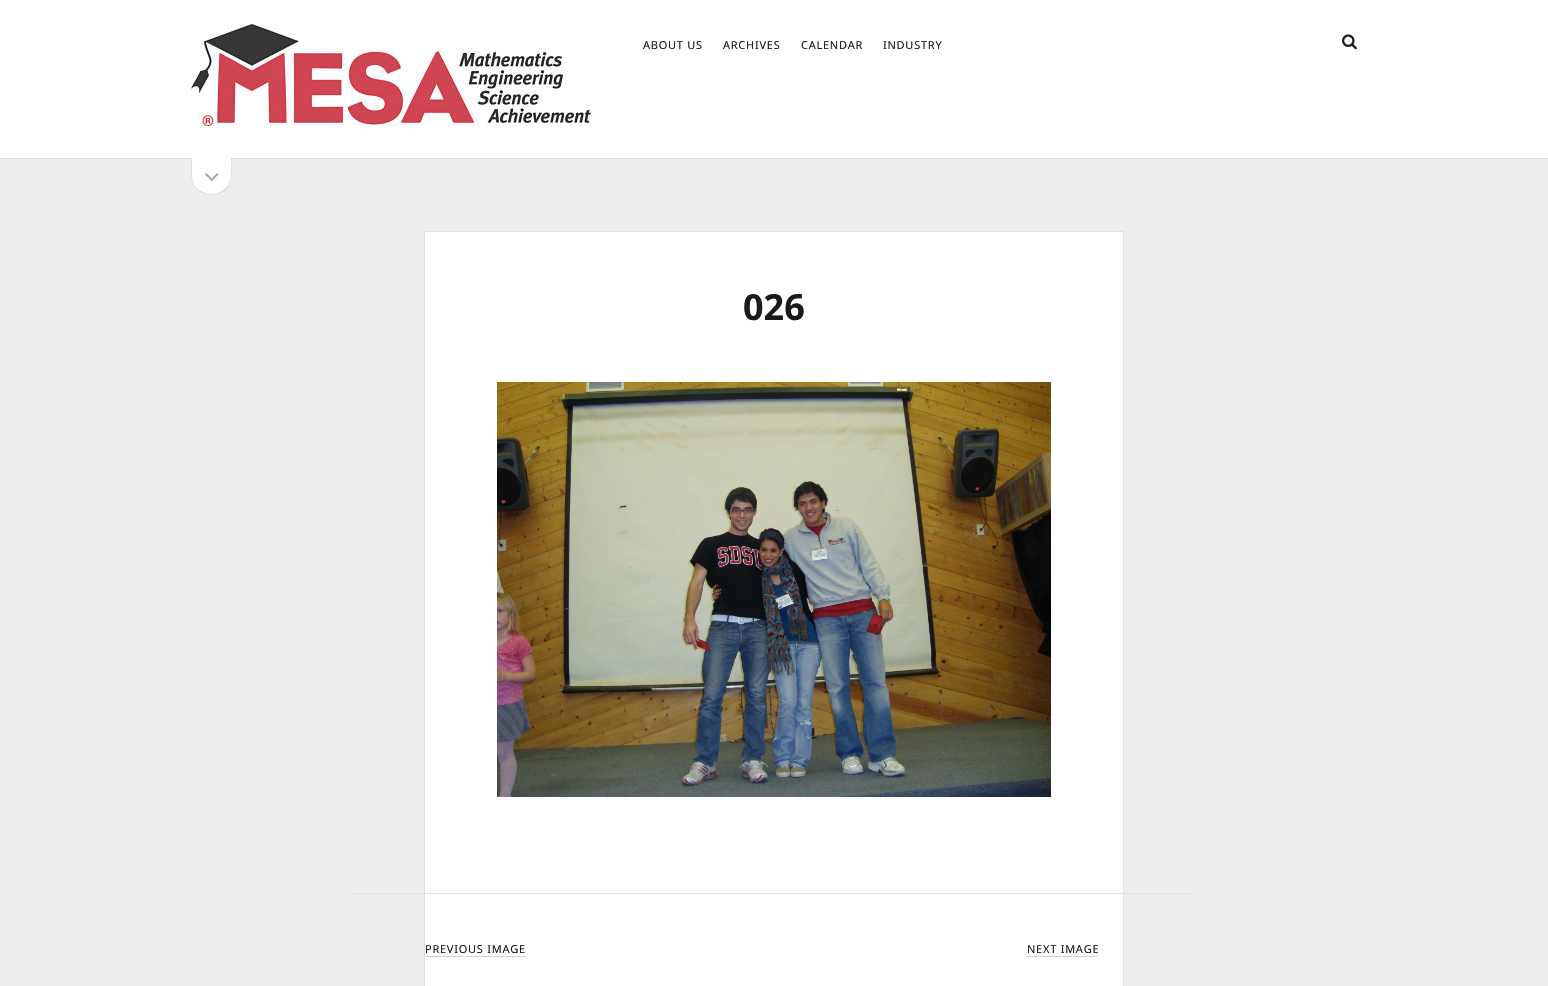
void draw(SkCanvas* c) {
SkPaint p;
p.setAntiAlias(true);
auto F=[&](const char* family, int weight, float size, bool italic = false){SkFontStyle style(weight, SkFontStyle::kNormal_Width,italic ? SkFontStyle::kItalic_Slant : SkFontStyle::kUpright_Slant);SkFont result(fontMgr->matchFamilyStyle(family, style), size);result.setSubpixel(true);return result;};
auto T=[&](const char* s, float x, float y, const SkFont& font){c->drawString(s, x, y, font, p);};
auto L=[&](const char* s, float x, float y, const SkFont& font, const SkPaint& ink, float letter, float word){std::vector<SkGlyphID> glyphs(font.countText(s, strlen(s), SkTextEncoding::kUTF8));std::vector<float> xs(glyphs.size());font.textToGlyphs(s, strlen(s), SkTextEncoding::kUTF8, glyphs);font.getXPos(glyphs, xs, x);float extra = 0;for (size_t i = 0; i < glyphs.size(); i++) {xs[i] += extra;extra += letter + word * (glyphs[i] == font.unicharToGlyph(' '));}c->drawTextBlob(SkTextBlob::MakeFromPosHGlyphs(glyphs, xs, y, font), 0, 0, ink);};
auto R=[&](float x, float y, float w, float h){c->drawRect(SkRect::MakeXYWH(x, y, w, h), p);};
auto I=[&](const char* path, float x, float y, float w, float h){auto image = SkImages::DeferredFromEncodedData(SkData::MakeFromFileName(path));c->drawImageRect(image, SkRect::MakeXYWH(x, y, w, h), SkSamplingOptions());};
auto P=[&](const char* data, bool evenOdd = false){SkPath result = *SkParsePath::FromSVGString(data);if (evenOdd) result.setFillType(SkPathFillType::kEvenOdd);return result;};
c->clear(0xffededed);
p.setColor(0xffffffff);
R(0,0,1548,158);
I("1.png",191,24,400,102);
auto f1 = F("Noto Sans",400,11);
p.setColor(0xff1a1a1a);
L("ABOUT US",643,49,f1,p,.75,0);
L("ARCHIVES",723,49,f1,p,.75,0);
L("CALENDAR",801,49,f1,p,.75,0);
L("INDUSTRY",883,49,f1,p,.75,0);
I("2.png",1342,34,15,16);
p.setColor(0xffe0e0e0);
R(0,158,1548,1);
p.setColor(0xffffffff);
c->drawPath(P("M191 158h41c0 7 1 19-2 26c-8 18-39 13-39-8z"),p);
p.setColor(0xffe0e0e0);
c->drawPath(P("M191 158h41c0 7 1 19-2 26c-8 18-39 13-39-8zm1 0h39c0 7 1 19-2 25c-7 17-37 13-37-7z",true),p);
I("3.png",205,173,14,8);
p.setColor(0xffffffff);
c->drawRect(SkRect::MakeXYWH(424.5,231.5,699,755),p);
p.setStroke(true);
p.setStrokeWidth(1);
p.setColor(0xffe0e0e0);
c->drawRect(SkRect::MakeXYWH(424.5,231.5,699,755),p);
auto f2 = F("Noto Sans",700,36);
p.setStroke(false);
p.setColor(0xff1a1a1a);
T("026",743,320,f2);
I("4.png",497,382,554,415);
p.setColor(0xffe0e0e0);
R(353,893,842,1);
p.setColor(0xff1a1a1a);
L("PREVIOUS IMAGE",425,953,f1,p,.75,0);
p.setColor(0xffd4d4d4);
R(425,956,101,1);
p.setColor(0xff1a1a1a);
L("NEXT IMAGE",1027,953,f1,p,.75,0);
p.setColor(0xffd4d4d4);
R(1027,956,72,1);
}
